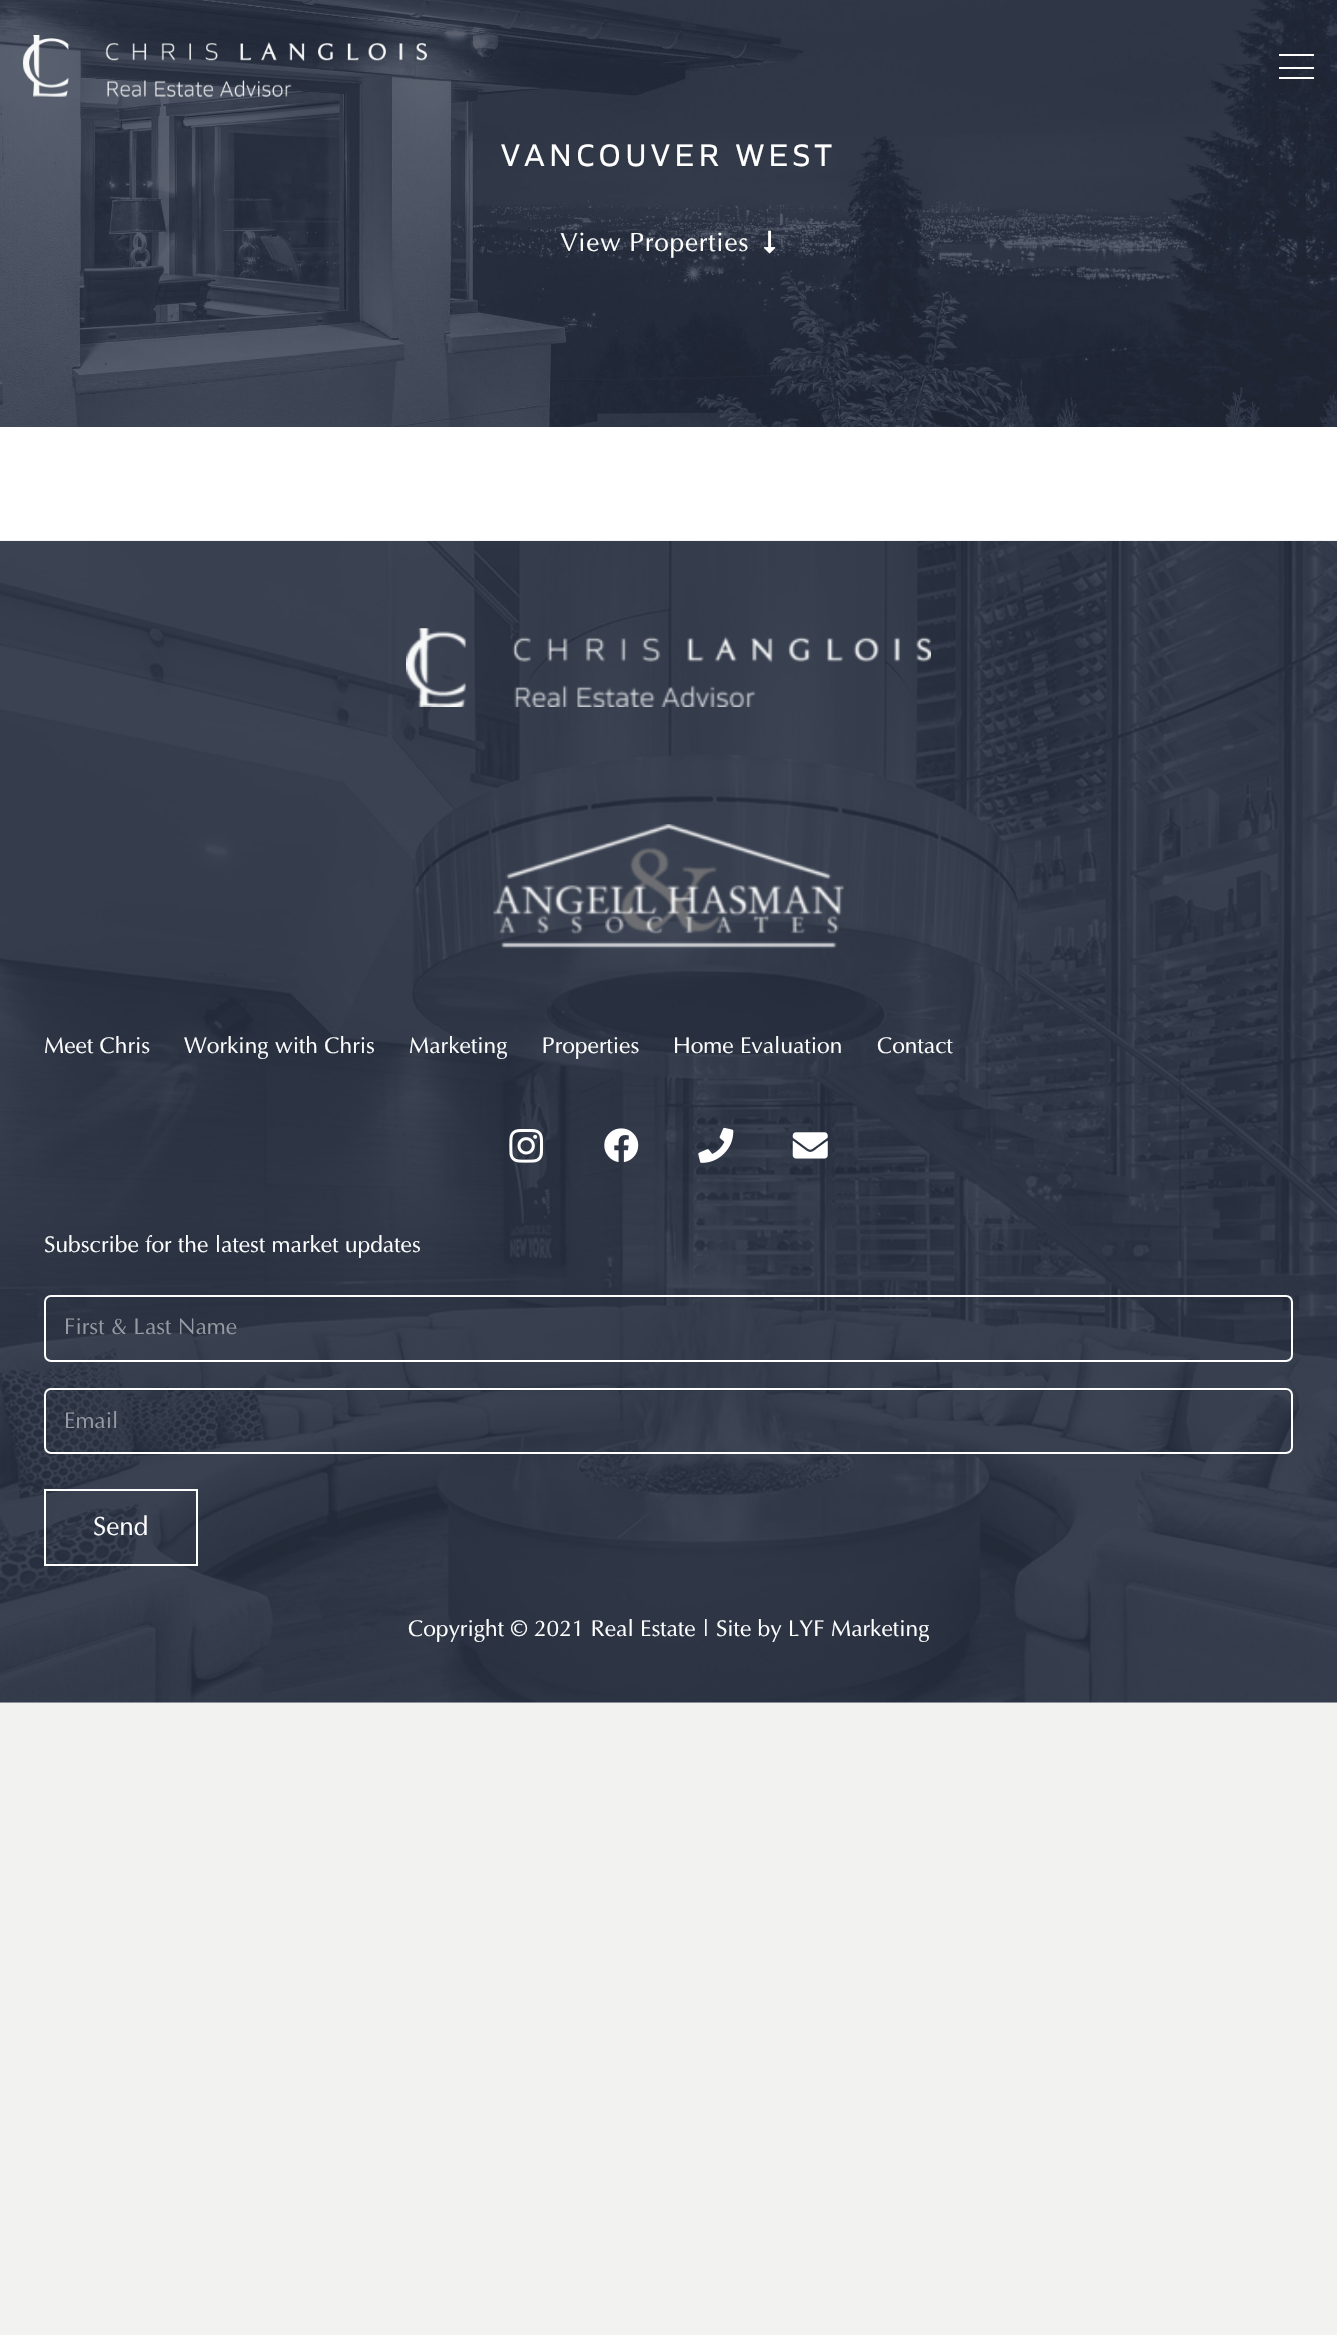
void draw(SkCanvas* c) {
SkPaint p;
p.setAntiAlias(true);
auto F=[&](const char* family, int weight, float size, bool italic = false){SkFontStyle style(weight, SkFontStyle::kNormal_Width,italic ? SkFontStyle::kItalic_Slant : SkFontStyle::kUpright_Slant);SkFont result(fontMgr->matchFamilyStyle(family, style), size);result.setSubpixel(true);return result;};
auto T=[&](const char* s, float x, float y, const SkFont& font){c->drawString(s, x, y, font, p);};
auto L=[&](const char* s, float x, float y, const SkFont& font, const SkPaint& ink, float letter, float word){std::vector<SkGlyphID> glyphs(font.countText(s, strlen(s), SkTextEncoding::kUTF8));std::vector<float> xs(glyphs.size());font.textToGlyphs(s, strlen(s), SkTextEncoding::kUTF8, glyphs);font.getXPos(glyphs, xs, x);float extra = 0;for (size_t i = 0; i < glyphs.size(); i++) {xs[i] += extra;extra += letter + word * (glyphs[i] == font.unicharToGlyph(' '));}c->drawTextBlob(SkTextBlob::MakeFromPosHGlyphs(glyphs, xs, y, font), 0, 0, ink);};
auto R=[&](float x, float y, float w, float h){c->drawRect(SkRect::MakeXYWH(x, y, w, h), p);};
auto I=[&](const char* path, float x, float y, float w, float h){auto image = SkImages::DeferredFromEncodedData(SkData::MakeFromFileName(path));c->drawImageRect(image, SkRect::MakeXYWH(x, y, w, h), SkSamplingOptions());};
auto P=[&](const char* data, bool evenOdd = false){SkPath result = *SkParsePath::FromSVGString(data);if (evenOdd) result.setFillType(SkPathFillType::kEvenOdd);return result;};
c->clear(0xfff2f2f0);
p.setColor(0xffffffff);
R(0,427,1337,114);
I("2.png",0,0,1337,427);
I("1.png",23,35,404,62);
R(1279,67,35,2);
R(1279,54,35,2);
R(1279,77,35,2);
auto f1 = F("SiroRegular",400,31.5);
L("VANCOUVER WEST",501,166,f1,p,4.4,0);
auto f2 = F("Optima",400,26.25);
L("View Properties",560,251,f2,p,.75,0);
I("3.png",763,230,13,24);
R(0,1702,1337,1);
I("4.png",0,540,1337,1163);
I("5.png",406,628,525,79);
I("6.png",493,824,351,125);
auto f3 = F("Optima",400,22.75);
T("Meet Chris",44,1053,f3);
T("Working with Chris",184,1053,f3);
T("Marketing",409,1053,f3);
T("Properties",542,1053,f3);
T("Home Evaluation",673,1053,f3);
T("Contact",877,1053,f3);
I("7.png",509,1129,34,34);
I("8.png",604,1128,35,35);
I("9.png",698,1127,36,36);
I("10.png",792,1132,36,27);
T("Subscribe for the latest market updates",44,1252,f3);
p.setColor(0x14000000);
c->drawPath(P("M51 1298h1235c3 0 6 3 6 6v-2c0-3-2-5-5-5h-1236c-3 0-5 2-5 5v2c0-3 2-6 5-6z"),p);
p.setStroke(true);
p.setStrokeWidth(2);
p.setColor(0xffffffff);
c->drawRoundRect(SkRect::MakeXYWH(45,1296,1247,65),6,6,p);
p.setStroke(false);
p.setColor(0xff969aa2);
T("First & Last Name",64,1334,f3);
p.setColor(0x14000000);
c->drawPath(P("M51 1391h1235c3 0 6 3 6 5c0-3-2-6-5-6h-1236c-3 0-5 3-5 6c0-2 2-5 5-5z"),p);
p.setStroke(true);
p.setColor(0xffffffff);
c->drawRoundRect(SkRect::MakeXYWH(45,1389,1247,64),6,6,p);
p.setStroke(false);
p.setColor(0xff969aa2);
T("Email",64,1428,f3);
p.setStroke(true);
p.setColor(0xffffffff);
c->drawRect(SkRect::MakeXYWH(45,1490,152,75),p);
p.setStroke(false);
T("Send",93,1535,f2);
T("Copyright © 2021 Real Estate | Site by LYF Marketing",408,1636,f3);
}
